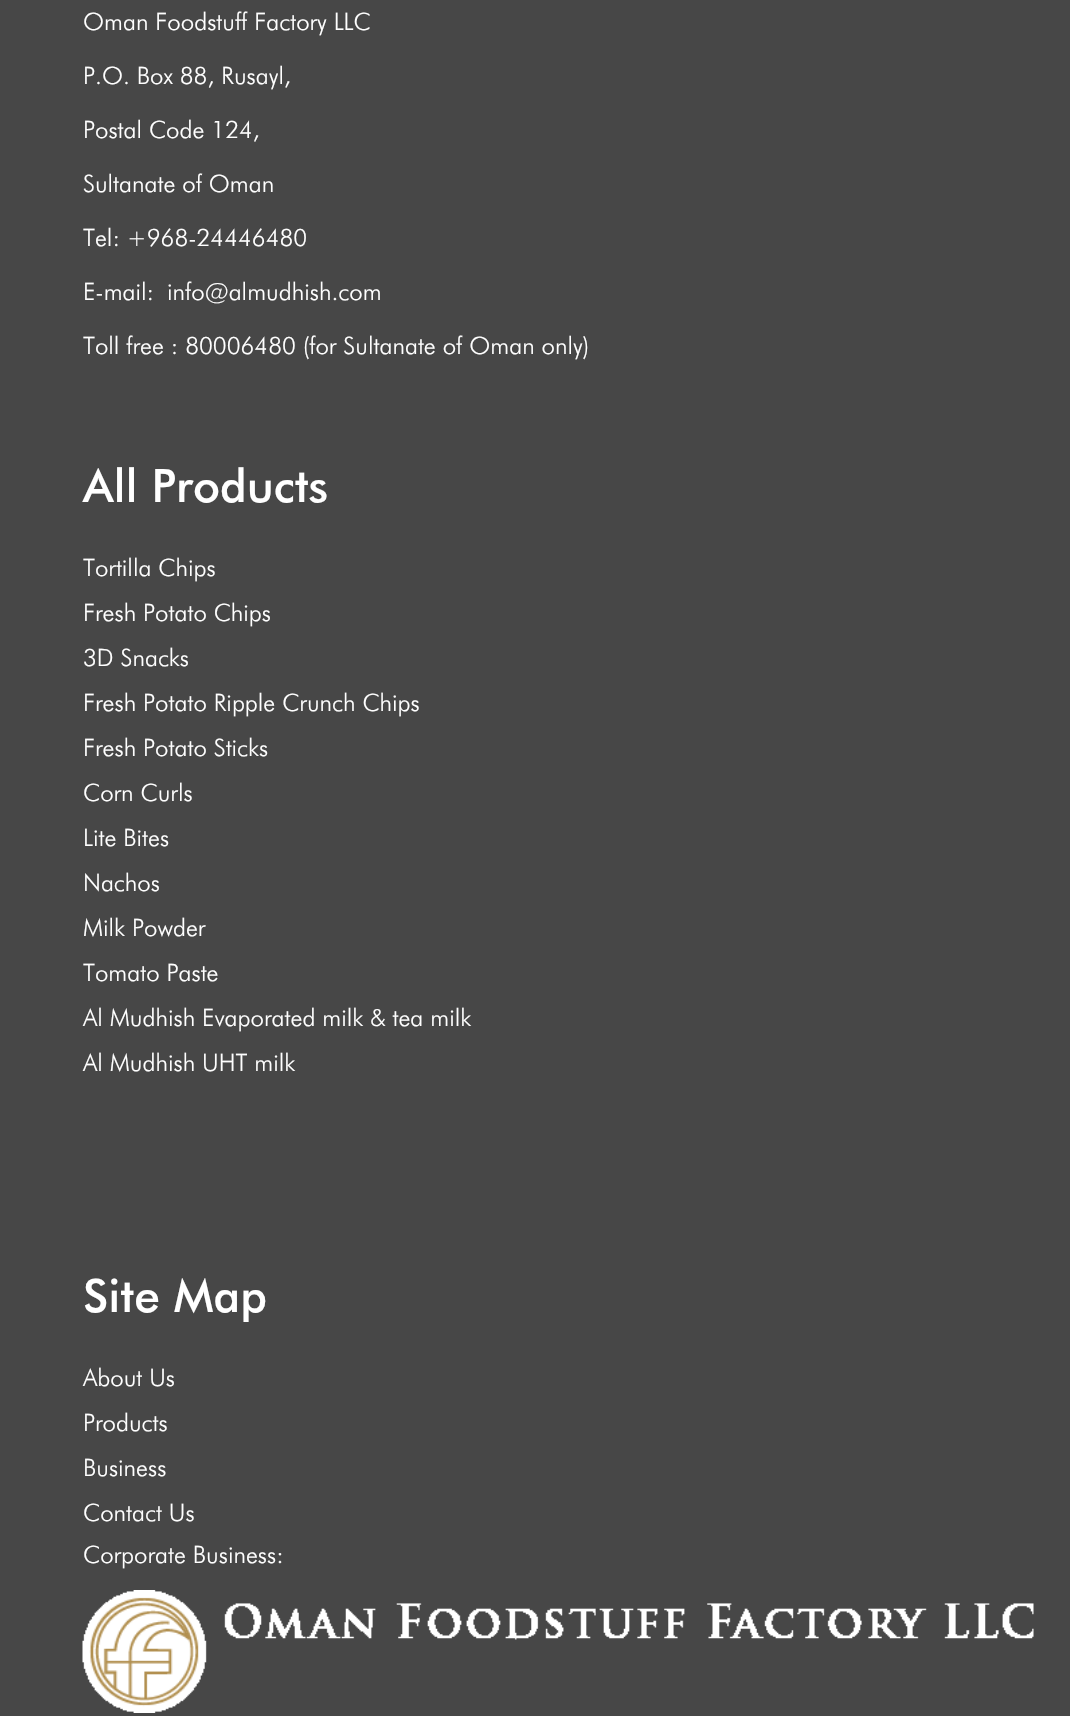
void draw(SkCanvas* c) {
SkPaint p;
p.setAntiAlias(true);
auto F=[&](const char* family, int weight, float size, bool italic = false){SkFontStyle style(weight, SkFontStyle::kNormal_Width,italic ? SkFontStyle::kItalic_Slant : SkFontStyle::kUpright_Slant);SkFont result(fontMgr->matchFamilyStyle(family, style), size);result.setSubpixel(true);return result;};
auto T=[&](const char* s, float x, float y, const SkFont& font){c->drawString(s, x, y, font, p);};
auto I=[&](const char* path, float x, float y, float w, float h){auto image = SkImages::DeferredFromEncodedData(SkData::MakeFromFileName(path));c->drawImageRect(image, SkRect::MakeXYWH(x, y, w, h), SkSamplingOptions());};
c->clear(0xff474747);
auto f1 = F("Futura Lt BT",300,24);
p.setColor(0xffffffff);
T("Oman Foodstuff Factory LLC",83,30,f1);
T("P.O. Box 88, Rusayl,",83,84,f1);
T("Postal Code 124,",83,138,f1);
T("Sultanate of Oman",83,192,f1);
T("Tel: +968-24446480",83,246,f1);
T("E-mail:",83,300,f1);
T("info@almudhish.com",167,300,f1);
T("Toll free : 80006480 (for Sultanate of Oman only)",83,354,f1);
auto f2 = F("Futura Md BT",500,46);
T("All Products",83,502,f2);
T("Tortilla Chips",83,576,f1);
T("Fresh Potato Chips",83,621,f1);
T("3D Snacks",83,666,f1);
T("Fresh Potato Ripple Crunch Chips",83,711,f1);
T("Fresh Potato Sticks",83,756,f1);
T("Corn Curls",83,801,f1);
T("Lite Bites",83,846,f1);
T("Nachos",83,891,f1);
T("Milk Powder",83,936,f1);
T("Tomato Paste",83,981,f1);
T("Al Mudhish Evaporated milk & tea milk",83,1026,f1);
T("Al Mudhish UHT milk",83,1071,f1);
T("Site Map",83,1312,f2);
T("About Us",83,1386,f1);
T("Products",83,1431,f1);
T("Business",83,1476,f1);
T("Contact Us",83,1521,f1);
T("Corporate Business:",83,1563,f1);
I("1.png",82,1590,952,123);
}
